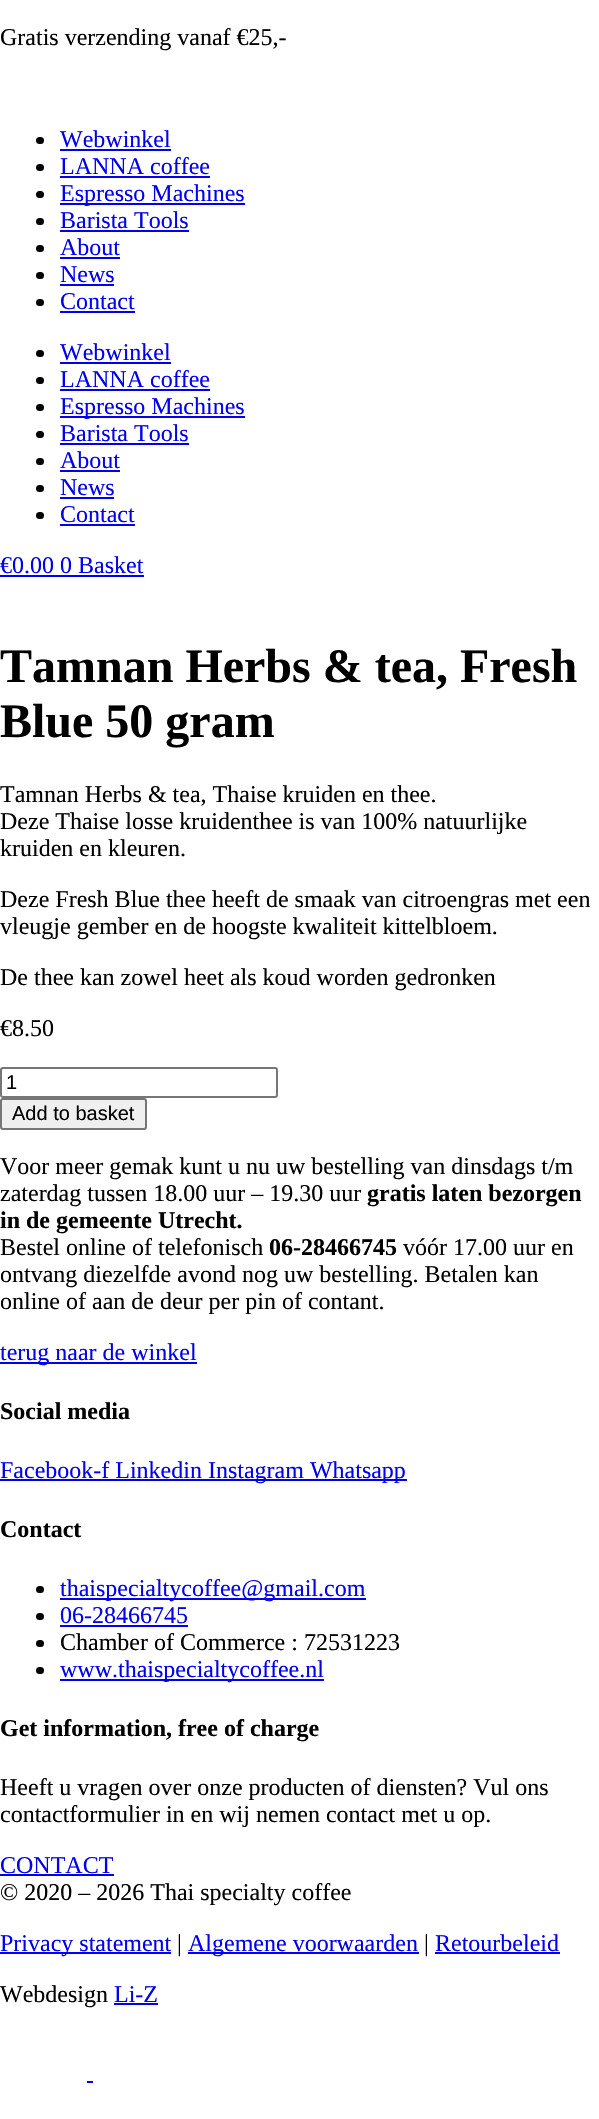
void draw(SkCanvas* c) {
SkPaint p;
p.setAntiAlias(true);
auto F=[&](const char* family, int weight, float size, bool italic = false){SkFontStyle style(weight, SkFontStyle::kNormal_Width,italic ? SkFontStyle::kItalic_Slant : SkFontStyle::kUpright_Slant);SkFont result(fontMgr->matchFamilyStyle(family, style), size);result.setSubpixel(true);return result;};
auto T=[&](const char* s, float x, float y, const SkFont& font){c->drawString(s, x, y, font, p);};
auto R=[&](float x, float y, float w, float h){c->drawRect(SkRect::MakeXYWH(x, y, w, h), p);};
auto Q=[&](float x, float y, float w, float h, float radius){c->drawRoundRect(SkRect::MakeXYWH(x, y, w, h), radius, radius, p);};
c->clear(0xffffffff);
auto f1 = F("Liberation Serif",400,24);
p.setColor(0xff000000);
T("Gratis verzending vanaf €25,-",0,45,f1);
Q(36,137,8,7,3.5);
p.setColor(0xff0000ee);
T("Webwinkel",60,147,f1);
R(60,149,111,2);
p.setColor(0xff000000);
Q(36,164,8,7,3.5);
p.setColor(0xff0000ee);
T("LANNA coffee",60,174,f1);
R(60,176,150,2);
p.setColor(0xff000000);
Q(36,191,8,7,3.5);
p.setColor(0xff0000ee);
R(60,203,185,2);
T("Espresso Machines",60,201,f1);
p.setColor(0xff000000);
Q(36,218,8,7,3.5);
p.setColor(0xff0000ee);
T("Barista Tools",60,228,f1);
R(60,230,129,2);
p.setColor(0xff000000);
Q(36,245,8,7,3.5);
p.setColor(0xff0000ee);
T("About",60,255,f1);
R(60,257,60,2);
p.setColor(0xff000000);
Q(36,272,8,7,3.5);
p.setColor(0xff0000ee);
T("News",60,282,f1);
R(60,284,54,2);
p.setColor(0xff000000);
Q(36,299,8,7,3.5);
p.setColor(0xff0000ee);
T("Contact",60,309,f1);
R(60,311,75,2);
p.setColor(0xff000000);
Q(36,350,8,7,3.5);
p.setColor(0xff0000ee);
T("Webwinkel",60,360,f1);
R(60,362,111,2);
p.setColor(0xff000000);
Q(36,377,8,7,3.5);
p.setColor(0xff0000ee);
T("LANNA coffee",60,387,f1);
R(60,389,150,2);
p.setColor(0xff000000);
Q(36,404,8,7,3.5);
p.setColor(0xff0000ee);
R(60,416,185,2);
T("Espresso Machines",60,414,f1);
p.setColor(0xff000000);
Q(36,431,8,7,3.5);
p.setColor(0xff0000ee);
T("Barista Tools",60,441,f1);
R(60,443,129,2);
p.setColor(0xff000000);
Q(36,458,8,7,3.5);
p.setColor(0xff0000ee);
T("About",60,468,f1);
R(60,470,60,2);
p.setColor(0xff000000);
Q(36,485,8,7,3.5);
p.setColor(0xff0000ee);
T("News",60,495,f1);
R(60,497,54,2);
p.setColor(0xff000000);
Q(36,512,8,7,3.5);
p.setColor(0xff0000ee);
T("Contact",60,522,f1);
R(60,524,75,2);
T("€0.00 0 Basket",0,573,f1);
R(0,575,144,2);
auto f2 = F("Liberation Serif",700,48);
p.setColor(0xff000000);
T("Tamnan Herbs & tea, Fresh",0,682,f2);
T("Blue 50 gram",0,737,f2);
T("Tamnan Herbs & tea, Thaise kruiden en thee.",0,802,f1);
T("Deze Thaise losse kruidenthee is van 100% natuurlijke",0,829,f1);
T("kruiden en kleuren.",0,856,f1);
T("Deze Fresh Blue thee heeft de smaak van citroengras met een",0,907,f1);
T("vleugje gember en de hoogste kwaliteit kittelbloem.",0,934,f1);
T("De thee kan zowel heet als koud worden gedronken",0,985,f1);
T("€8.50",0,1036,f1);
p.setStroke(true);
p.setStrokeWidth(2);
p.setColor(0xff767676);
c->drawRoundRect(SkRect::MakeXYWH(1,1068,276,29),2,2,p);
auto f3 = F("Liberation Sans",400,20);
p.setStroke(false);
p.setColor(0xff000000);
T("1",6,1089,f3);
p.setColor(0xffefefef);
c->drawRoundRect(SkRect::MakeXYWH(1,1099,145,30),2,2,p);
p.setStroke(true);
p.setColor(0xff767676);
c->drawRoundRect(SkRect::MakeXYWH(1,1099,145,30),2,2,p);
p.setStroke(false);
p.setColor(0xff000000);
T("Add to basket",12,1120,f3);
T("Voor meer gemak kunt u nu uw bestelling van dinsdags t/m",0,1174,f1);
T("zaterdag tussen 18.00 uur – 19.30 uur",0,1201,f1);
auto f4 = F("Liberation Serif",700,24);
T("gratis laten bezorgen",367,1201,f4);
T("in de gemeente Utrecht.",0,1228,f4);
T("Bestel online of telefonisch",0,1255,f1);
T("06-28466745",269,1255,f4);
T("vóór 17.00 uur en",403,1255,f1);
T("ontvang diezelfde avond nog uw bestelling. Betalen kan",0,1282,f1);
T("online of aan de deur per pin of contant.",0,1309,f1);
p.setColor(0xff0000ee);
R(0,1362,197,2);
T("terug naar de winkel",0,1360,f1);
p.setColor(0xff000000);
T("Social media",0,1419,f4);
p.setColor(0xff0000ee);
R(0,1479,407,2);
T("Facebook-f Linkedin Instagram Whatsapp",0,1478,f1);
p.setColor(0xff000000);
T("Contact",0,1537,f4);
Q(36,1586,8,7,3.5);
p.setColor(0xff0000ee);
R(60,1598,306,2);
T("thaispecialtycoffee@gmail.com",60,1596,f1);
p.setColor(0xff000000);
Q(36,1613,8,7,3.5);
p.setColor(0xff0000ee);
T("06-28466745",60,1623,f1);
R(60,1625,128,2);
p.setColor(0xff000000);
Q(36,1640,8,7,3.5);
T("Chamber of Commerce : 72531223",60,1650,f1);
Q(36,1667,8,7,3.5);
p.setColor(0xff0000ee);
R(60,1679,264,2);
T("www.thaispecialtycoffee.nl",60,1677,f1);
p.setColor(0xff000000);
T("Get information, free of charge",0,1736,f4);
T("Heeft u vragen over onze producten of diensten? Vul ons",0,1795,f1);
T("contactformulier in en wij nemen contact met u op.",0,1822,f1);
p.setColor(0xff0000ee);
T("CONTACT",0,1873,f1);
R(0,1874,114,2);
p.setColor(0xff000000);
T("© 2020 – 2026 Thai specialty coffee",0,1900,f1);
p.setColor(0xff0000ee);
R(0,1952,171,2);
T("Privacy statement",0,1951,f1);
p.setColor(0xff000000);
T("|",177,1951,f1);
p.setColor(0xff0000ee);
R(188,1952,231,2);
T("Algemene voorwaarden",188,1951,f1);
p.setColor(0xff000000);
T("|",424,1951,f1);
p.setColor(0xff0000ee);
T("Retourbeleid",435,1951,f1);
R(435,1952,125,2);
p.setColor(0xff000000);
T("Webdesign",0,2002,f1);
p.setColor(0xff0000ee);
T("Li-Z",114,2002,f1);
R(114,2003,44,2);
R(87,2081,6,2);
}
